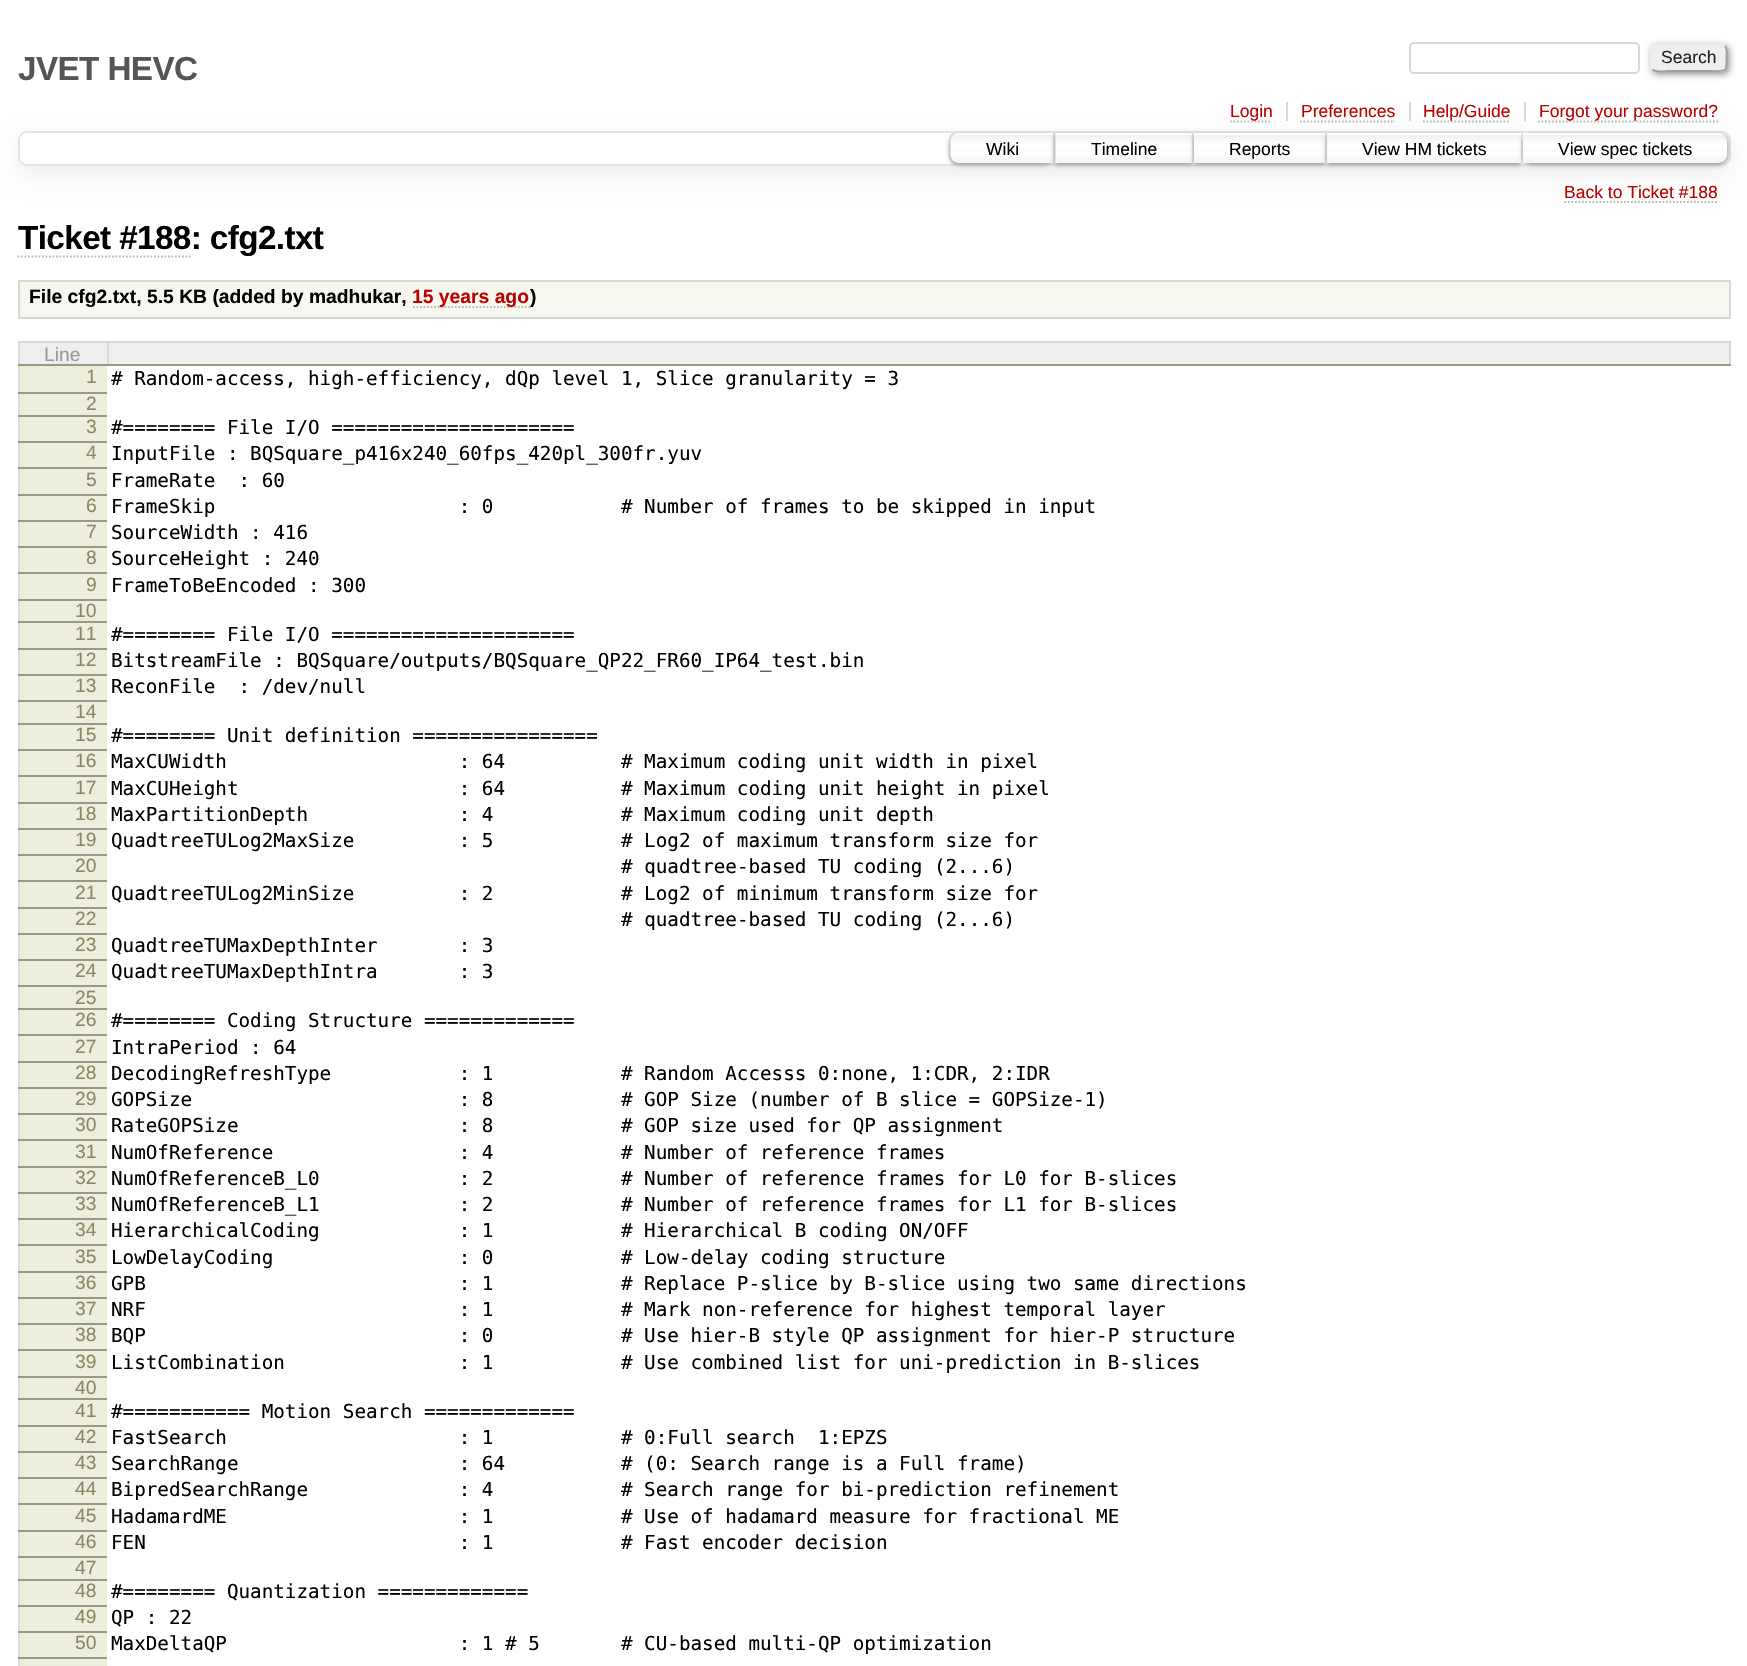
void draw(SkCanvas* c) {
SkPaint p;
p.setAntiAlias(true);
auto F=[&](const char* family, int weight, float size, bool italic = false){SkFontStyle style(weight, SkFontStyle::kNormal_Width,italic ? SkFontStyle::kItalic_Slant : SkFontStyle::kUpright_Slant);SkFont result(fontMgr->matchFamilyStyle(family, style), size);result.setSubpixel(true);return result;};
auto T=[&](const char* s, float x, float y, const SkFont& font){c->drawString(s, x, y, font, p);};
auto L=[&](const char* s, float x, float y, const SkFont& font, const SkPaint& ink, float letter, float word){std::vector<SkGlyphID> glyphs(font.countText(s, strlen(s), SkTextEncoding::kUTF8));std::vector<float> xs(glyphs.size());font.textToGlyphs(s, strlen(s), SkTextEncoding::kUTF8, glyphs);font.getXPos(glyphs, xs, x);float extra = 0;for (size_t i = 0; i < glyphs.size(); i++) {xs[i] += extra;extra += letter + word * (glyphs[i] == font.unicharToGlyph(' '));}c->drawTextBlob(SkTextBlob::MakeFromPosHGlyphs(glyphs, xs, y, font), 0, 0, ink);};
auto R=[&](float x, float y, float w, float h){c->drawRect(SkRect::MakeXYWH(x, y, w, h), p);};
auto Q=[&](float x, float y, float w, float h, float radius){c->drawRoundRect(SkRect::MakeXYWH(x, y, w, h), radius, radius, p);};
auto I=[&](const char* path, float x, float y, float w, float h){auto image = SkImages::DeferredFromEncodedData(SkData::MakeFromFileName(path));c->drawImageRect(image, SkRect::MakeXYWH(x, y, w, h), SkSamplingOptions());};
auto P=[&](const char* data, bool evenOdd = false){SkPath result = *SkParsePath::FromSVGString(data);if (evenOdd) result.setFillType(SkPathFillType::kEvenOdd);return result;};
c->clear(0xffffffff);
auto f1 = F("Liberation Sans",700,33.25);
p.setColor(0xff555555);
L("JVET HEVC",18,80,f1,p,-.6,0);
p.setStroke(true);
p.setStrokeWidth(2);
p.setColor(0xffd7d7d7);
c->drawRoundRect(SkRect::MakeXYWH(1410,43,229,30),4,4,p);
p.setStroke(false);
p.setColor(0xff888888);
p.setMaskFilter(SkMaskFilter::MakeBlur(kNormal_SkBlurStyle, 3.5));
c->drawRoundRect(SkRect::MakeXYWH(1652,46,77,28),5,5,p);
p.setMaskFilter(nullptr);
p.setColor(0xffeeeeee);
Q(1650,44,77,28,5);
p.setStroke(true);
p.setStrokeWidth(1.8);
p.setColor(0xff9f9f9f);
c->drawPath(P("M1725 46c2.5 2.5 1.5 8.5 1.5 12c0 15 .5 13-15.5 13h-44.5c-.5 0-11 1.5-14-1.5"),p);
p.setColor(0xffeeeeee);
c->drawPath(P("M1652.5 69.5c-2.5-2.5-1.5-8.5-1.5-11.5c0-15.5-.5-13.5 15.5-13.5h44.5c.5 0 11-1.5 14 1.5"),p);
auto f2 = F("Liberation Sans",400,17.5);
p.setStroke(false);
p.setColor(0xff222222);
T("Search",1661,63,f2);
c->save();
c->clipPath(P("M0 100h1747v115h-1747zm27 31h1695c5 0 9 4 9 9v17c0 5-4 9-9 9h-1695c-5 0-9-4-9-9v-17c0-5 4-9 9-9z",true),true);
p.setColor(0xffeeeeee);
p.setMaskFilter(SkMaskFilter::MakeBlur(kNormal_SkBlurStyle, 13));
c->drawRoundRect(SkRect::MakeXYWH(18,140,1713,35),9,9,p);
p.setMaskFilter(nullptr);
c->restore();
p.setColor(0xffd7d7d7);
R(1286,102,2,19);
p.setStroke(true);
p.setColor(0xffbbbbbb);
p.setPathEffect(SkDashPathEffect::Make({{1.75f,1.75f}}, 0));
c->drawPath(P("M1230 121.5h42"),p);
p.setPathEffect(nullptr);
p.setStroke(false);
p.setColor(0xffbb0000);
T("Login",1230,117,f2);
p.setColor(0xffd7d7d7);
R(1409,102,2,19);
p.setColor(0xffbb0000);
T("Preferences",1301,117,f2);
p.setStroke(true);
p.setColor(0xffbbbbbb);
p.setPathEffect(SkDashPathEffect::Make({{1.75f,1.75f}}, 0));
c->drawPath(P("M1300 121.5h95"),p);
p.setPathEffect(nullptr);
p.setStroke(false);
p.setColor(0xffd7d7d7);
R(1524,102,2,19);
p.setStroke(true);
p.setColor(0xffbbbbbb);
p.setPathEffect(SkDashPathEffect::Make({{1.75f,1.75f}}, 0));
c->drawPath(P("M1423 121.5h87"),p);
p.setPathEffect(nullptr);
p.setStroke(false);
p.setColor(0xffbb0000);
T("Help/Guide",1423,117,f2);
p.setStroke(true);
p.setColor(0xffbbbbbb);
p.setPathEffect(SkDashPathEffect::Make({{1.75f,1.75f}}, 0));
c->drawPath(P("M1538 121.5h180.5"),p);
p.setPathEffect(nullptr);
p.setStroke(false);
p.setColor(0xffbb0000);
T("Forgot your password?",1539,117,f2);
p.setStroke(true);
p.setStrokeWidth(2);
p.setColor(0xffe4e4e4);
c->drawRoundRect(SkRect::MakeXYWH(19,132,1711,33),8,8,p);
p.setStroke(false);
p.setColor(0xffffffff);
c->drawPath(P("M958 131h97v34h-97c-5 0-9-4-9-9v-16c0-5 4-9 9-9z"),p);
I("1.png",949,135,104,29);
p.setStroke(true);
p.setColor(0xffe4e4e4);
c->drawPath(P("M958 132h96v32h-96c-4.5 0-8-3.5-8-8v-16c0-4.5 3.5-8 8-8z"),p);
c->save();
c->clipPath(P("M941 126h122v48h-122zm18 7h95v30h-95c-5 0-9-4-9-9v-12c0-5 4-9 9-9z",true),true);
p.setStroke(false);
p.setColor(0xff999999);
p.setMaskFilter(SkMaskFilter::MakeBlur(kNormal_SkBlurStyle, 2.5));
c->drawRoundRect(SkRect::MakeXYWH(950,135,104,30),9,9,p);
p.setMaskFilter(nullptr);
c->restore();
p.setColor(0xff000000);
T("Wiki",986,155,f2);
p.setColor(0xffffffff);
R(1056,137,3,26);
I("2.png",1053,135,139,28);
p.setStroke(true);
p.setColor(0xffe4e4e4);
c->drawRect(SkRect::MakeXYWH(1055,132,138,32),p);
c->save();
c->clipPath(P("M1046 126h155v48h-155zm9 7h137v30h-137z",true),true);
p.setStroke(false);
p.setColor(0xff999999);
p.setMaskFilter(SkMaskFilter::MakeBlur(kNormal_SkBlurStyle, 2.5));
c->drawRect(SkRect::MakeXYWH(1055,135,137,30),p);
p.setMaskFilter(nullptr);
c->restore();
p.setColor(0xff000000);
T("Timeline",1091,155,f2);
p.setColor(0xffffffff);
R(1194,133,3,30);
I("3.png",1194,135,131,28);
p.setStroke(true);
p.setColor(0xffe4e4e4);
c->drawRect(SkRect::MakeXYWH(1193,132,133,32),p);
c->save();
c->clipPath(P("M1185 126h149v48h-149zm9 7h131v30h-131z",true),true);
p.setStroke(false);
p.setColor(0xff999999);
p.setMaskFilter(SkMaskFilter::MakeBlur(kNormal_SkBlurStyle, 2.5));
c->drawRect(SkRect::MakeXYWH(1194,135,131,30),p);
p.setMaskFilter(nullptr);
c->restore();
p.setColor(0xff000000);
T("Reports",1229,155,f2);
p.setColor(0xffffffff);
R(1327,133,3,30);
I("4.png",1327,135,194,28);
p.setStroke(true);
p.setColor(0xffe4e4e4);
c->drawRect(SkRect::MakeXYWH(1326,132,196,32),p);
c->save();
c->clipPath(P("M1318 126h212v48h-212zm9 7h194v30h-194z",true),true);
p.setStroke(false);
p.setColor(0xff999999);
p.setMaskFilter(SkMaskFilter::MakeBlur(kNormal_SkBlurStyle, 2.5));
c->drawRect(SkRect::MakeXYWH(1327,135,194,30),p);
p.setMaskFilter(nullptr);
c->restore();
p.setColor(0xff000000);
T("View HM tickets",1362,155,f2);
p.setColor(0xffffffff);
c->drawPath(P("M1521 131h199c5 0 9 4 9 9v16c0 5-4 9-9 9h-199z"),p);
I("5.png",1523,135,206,28);
p.setStroke(true);
p.setColor(0xffe4e4e4);
c->drawPath(P("M1522 132h198c4.5 0 8 3.5 8 8v16c0 4.5-3.5 8-8 8h-198z"),p);
c->save();
c->clipPath(P("M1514 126h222v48h-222zm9 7h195c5 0 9 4 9 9v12c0 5-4 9-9 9h-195z",true),true);
p.setStroke(false);
p.setColor(0xff999999);
p.setMaskFilter(SkMaskFilter::MakeBlur(kNormal_SkBlurStyle, 2.5));
c->drawRoundRect(SkRect::MakeXYWH(1523,135,204,30),9,9,p);
p.setMaskFilter(nullptr);
c->restore();
p.setColor(0xff000000);
T("View spec tickets",1558,155,f2);
p.setColor(0xffbb0000);
T("Back to Ticket #188",1564,198,f2);
p.setStroke(true);
p.setStrokeWidth(1.8);
p.setColor(0xffbbbbbb);
p.setPathEffect(SkDashPathEffect::Make({{1.75f,1.75f}}, 0));
c->drawPath(P("M1564.5 202h154"),p);
p.setPathEffect(nullptr);
p.setPathEffect(SkDashPathEffect::Make({{1.75f,1.75f}}, 0));
c->drawPath(P("M17.5 256.5h173.5"),p);
p.setPathEffect(nullptr);
p.setStroke(false);
p.setColor(0xff000000);
L("Ticket #188: cfg2.txt",18,249,f1,p,-.6,0);
p.setColor(0xfff7f7f0);
R(20,282,1709,35);
p.setColor(0xffd7d7d7);
R(18,280,1713,2);
R(1729,280,2,39);
R(18,317,1713,2);
R(18,280,2,39);
auto f3 = F("Liberation Sans",700,19.3);
p.setColor(0xff000000);
T("File cfg2.txt, 5.5 KB (added by madhukar,",29,303,f3);
p.setStroke(true);
p.setColor(0xffbbbbbb);
p.setPathEffect(SkDashPathEffect::Make({{1.75f,1.75f}}, 0));
c->drawPath(P("M413 307h117"),p);
p.setPathEffect(nullptr);
p.setStroke(false);
p.setColor(0xffbb0000);
T("15 years ago",412,303,f3);
p.setColor(0xff000000);
T(")",530,303,f3);
p.setColor(0xffdddddd);
R(18,341,2,1325);
p.setColor(0xffeeeeee);
R(109,343,1620,21);
p.setColor(0xffd7d7d7);
R(18,341,1713,2);
R(1729,341,2,25);
p.setColor(0xff999988);
R(107,364,1624,2);
p.setColor(0xffeeeeee);
R(20,343,87,21);
p.setColor(0xffd7d7d7);
R(107,341,2,25);
p.setColor(0xff999988);
R(18,364,91,2);
auto f4 = F("Liberation Sans",400,19.25);
p.setColor(0xff999999);
T("Line",44,361,f4);
p.setColor(0xffeeeedd);
R(20,366,87,26);
p.setColor(0xff999988);
R(18,392,91,2);
p.setColor(0xff888866);
T("1",86,383,f4);
auto f5 = F("DejaVu Sans Mono",400,19.25);
p.setColor(0xff000000);
T("# Random-access, high-efficiency, dQp level 1, Slice granularity = 3",111,385,f5);
p.setColor(0xffffffff);
R(107,392,2,2);
p.setColor(0xffeeeedd);
R(20,394,87,21);
p.setColor(0xff999988);
R(18,415,91,2);
p.setColor(0xff888866);
T("2",86,410,f4);
p.setColor(0xffeeeedd);
R(20,417,87,24);
p.setColor(0xff999988);
R(18,441,91,2);
p.setColor(0xff888866);
T("3",86,433,f4);
p.setColor(0xffffffff);
R(107,415,2,2);
p.setColor(0xff000000);
T("#======== File I/O =====================",111,434,f5);
p.setColor(0xffeeeedd);
R(20,443,87,24);
p.setColor(0xff999988);
R(18,467,91,2);
p.setColor(0xff888866);
T("4",86,459,f4);
p.setColor(0xffffffff);
R(107,441,2,2);
p.setColor(0xff000000);
T("InputFile : BQSquare_p416x240_60fps_420pl_300fr.yuv",111,460,f5);
p.setColor(0xffeeeedd);
R(20,469,87,25);
p.setColor(0xff999988);
R(18,494,91,2);
p.setColor(0xff888866);
T("5",86,486,f4);
p.setColor(0xffffffff);
R(107,467,2,2);
p.setColor(0xff000000);
T("FrameRate  : 60",111,487,f5);
p.setColor(0xffeeeedd);
R(20,496,87,24);
p.setColor(0xff999988);
R(18,520,91,2);
p.setColor(0xff888866);
T("6",86,512,f4);
p.setColor(0xffffffff);
R(107,494,2,2);
p.setColor(0xff000000);
T("FrameSkip                     : 0           # Number of frames to be skipped in input",111,513,f5);
p.setColor(0xffeeeedd);
R(20,522,87,24);
p.setColor(0xff999988);
R(18,546,91,2);
p.setColor(0xff888866);
T("7",86,538,f4);
p.setColor(0xffffffff);
R(107,520,2,2);
p.setColor(0xff000000);
T("SourceWidth : 416",111,539,f5);
p.setColor(0xffeeeedd);
R(20,548,87,24);
p.setColor(0xff999988);
R(18,572,91,2);
p.setColor(0xff888866);
T("8",86,564,f4);
p.setColor(0xffffffff);
R(107,546,2,2);
p.setColor(0xff000000);
T("SourceHeight : 240",111,565,f5);
p.setColor(0xffeeeedd);
R(20,574,87,25);
p.setColor(0xff999988);
R(18,599,91,2);
p.setColor(0xff888866);
T("9",86,591,f4);
p.setColor(0xffffffff);
R(107,572,2,2);
p.setColor(0xff000000);
T("FrameToBeEncoded : 300",111,592,f5);
p.setColor(0xffffffff);
R(107,599,2,2);
p.setColor(0xffeeeedd);
R(20,601,87,20);
p.setColor(0xff999988);
R(18,621,91,2);
p.setColor(0xff888866);
T("10",75,617,f4);
p.setColor(0xffeeeedd);
R(20,623,87,25);
p.setColor(0xff999988);
R(18,648,91,2);
p.setColor(0xff888866);
T("11",75,640,f4);
p.setColor(0xffffffff);
R(107,621,2,2);
p.setColor(0xff000000);
T("#======== File I/O =====================",111,641,f5);
p.setColor(0xffeeeedd);
R(20,650,87,24);
p.setColor(0xff999988);
R(18,674,91,2);
p.setColor(0xff888866);
T("12",75,666,f4);
p.setColor(0xffffffff);
R(107,648,2,2);
p.setColor(0xff000000);
T("BitstreamFile : BQSquare/outputs/BQSquare_QP22_FR60_IP64_test.bin",111,667,f5);
p.setColor(0xffeeeedd);
R(20,676,87,24);
p.setColor(0xff999988);
R(18,700,91,2);
p.setColor(0xff888866);
T("13",75,692,f4);
p.setColor(0xffffffff);
R(107,674,2,2);
p.setColor(0xff000000);
T("ReconFile  : /dev/null",111,693,f5);
p.setColor(0xffffffff);
R(107,700,2,2);
p.setColor(0xffeeeedd);
R(20,702,87,21);
p.setColor(0xff999988);
R(18,723,91,2);
p.setColor(0xff888866);
T("14",75,718,f4);
p.setColor(0xffeeeedd);
R(20,725,87,24);
p.setColor(0xff999988);
R(18,749,91,2);
p.setColor(0xff888866);
T("15",75,741,f4);
p.setColor(0xffffffff);
R(107,723,2,2);
p.setColor(0xff000000);
T("#======== Unit definition ================",111,742,f5);
p.setColor(0xffeeeedd);
R(20,751,87,24);
p.setColor(0xff999988);
R(18,775,91,2);
p.setColor(0xff888866);
T("16",75,767,f4);
p.setColor(0xffffffff);
R(107,749,2,2);
p.setColor(0xff000000);
T("MaxCUWidth                    : 64          # Maximum coding unit width in pixel",111,768,f5);
p.setColor(0xffeeeedd);
R(20,777,87,25);
p.setColor(0xff999988);
R(18,802,91,2);
p.setColor(0xff888866);
T("17",75,794,f4);
p.setColor(0xffffffff);
R(107,775,2,2);
p.setColor(0xff000000);
T("MaxCUHeight                   : 64          # Maximum coding unit height in pixel",111,795,f5);
p.setColor(0xffeeeedd);
R(20,804,87,24);
p.setColor(0xff999988);
R(18,828,91,2);
p.setColor(0xff888866);
T("18",75,820,f4);
p.setColor(0xffffffff);
R(107,802,2,2);
p.setColor(0xff000000);
T("MaxPartitionDepth             : 4           # Maximum coding unit depth",111,821,f5);
p.setColor(0xffeeeedd);
R(20,830,87,24);
p.setColor(0xff999988);
R(18,854,91,2);
p.setColor(0xff888866);
T("19",75,846,f4);
p.setColor(0xffffffff);
R(107,828,2,2);
p.setColor(0xff000000);
T("QuadtreeTULog2MaxSize         : 5           # Log2 of maximum transform size for",111,847,f5);
p.setColor(0xffeeeedd);
R(20,856,87,24);
p.setColor(0xff999988);
R(18,880,91,2);
p.setColor(0xff888866);
T("20",75,872,f4);
p.setColor(0xffffffff);
R(107,854,2,2);
p.setColor(0xff000000);
T("# quadtree-based TU coding (2...6)",621,873,f5);
p.setColor(0xffeeeedd);
R(20,882,87,25);
p.setColor(0xff999988);
R(18,907,91,2);
p.setColor(0xff888866);
T("21",75,899,f4);
p.setColor(0xffffffff);
R(107,880,2,2);
p.setColor(0xff000000);
T("QuadtreeTULog2MinSize         : 2           # Log2 of minimum transform size for",111,900,f5);
p.setColor(0xffeeeedd);
R(20,909,87,24);
p.setColor(0xff999988);
R(18,933,91,2);
p.setColor(0xff888866);
T("22",75,925,f4);
p.setColor(0xffffffff);
R(107,907,2,2);
p.setColor(0xff000000);
T("# quadtree-based TU coding (2...6)",621,926,f5);
p.setColor(0xffeeeedd);
R(20,935,87,24);
p.setColor(0xff999988);
R(18,959,91,2);
p.setColor(0xff888866);
T("23",75,951,f4);
p.setColor(0xffffffff);
R(107,933,2,2);
p.setColor(0xff000000);
T("QuadtreeTUMaxDepthInter       : 3",111,952,f5);
p.setColor(0xffeeeedd);
R(20,961,87,24);
p.setColor(0xff999988);
R(18,985,91,2);
p.setColor(0xff888866);
T("24",75,977,f4);
p.setColor(0xffffffff);
R(107,959,2,2);
p.setColor(0xff000000);
T("QuadtreeTUMaxDepthIntra       : 3",111,978,f5);
p.setColor(0xffffffff);
R(107,985,2,2);
p.setColor(0xffeeeedd);
R(20,987,87,21);
p.setColor(0xff999988);
R(18,1008,91,2);
p.setColor(0xff888866);
T("25",75,1004,f4);
p.setColor(0xffeeeedd);
R(20,1010,87,24);
p.setColor(0xff999988);
R(18,1034,91,2);
p.setColor(0xff888866);
T("26",75,1026,f4);
p.setColor(0xffffffff);
R(107,1008,2,2);
p.setColor(0xff000000);
T("#======== Coding Structure =============",111,1027,f5);
p.setColor(0xffeeeedd);
R(20,1036,87,25);
p.setColor(0xff999988);
R(18,1061,91,2);
p.setColor(0xff888866);
T("27",75,1053,f4);
p.setColor(0xffffffff);
R(107,1034,2,2);
p.setColor(0xff000000);
T("IntraPeriod : 64",111,1054,f5);
p.setColor(0xffeeeedd);
R(20,1063,87,24);
p.setColor(0xff999988);
R(18,1087,91,2);
p.setColor(0xff888866);
T("28",75,1079,f4);
p.setColor(0xffffffff);
R(107,1061,2,2);
p.setColor(0xff000000);
T("DecodingRefreshType           : 1           # Random Accesss 0:none, 1:CDR, 2:IDR",111,1080,f5);
p.setColor(0xffeeeedd);
R(20,1089,87,24);
p.setColor(0xff999988);
R(18,1113,91,2);
p.setColor(0xff888866);
T("29",75,1105,f4);
p.setColor(0xffffffff);
R(107,1087,2,2);
p.setColor(0xff000000);
T("GOPSize                       : 8           # GOP Size (number of B slice = GOPSize-1)",111,1106,f5);
p.setColor(0xffeeeedd);
R(20,1115,87,24);
p.setColor(0xff999988);
R(18,1139,91,2);
p.setColor(0xff888866);
T("30",75,1131,f4);
p.setColor(0xffffffff);
R(107,1113,2,2);
p.setColor(0xff000000);
T("RateGOPSize                   : 8           # GOP size used for QP assignment",111,1132,f5);
p.setColor(0xffeeeedd);
R(20,1141,87,25);
p.setColor(0xff999988);
R(18,1166,91,2);
p.setColor(0xff888866);
T("31",75,1158,f4);
p.setColor(0xffffffff);
R(107,1139,2,2);
p.setColor(0xff000000);
T("NumOfReference                : 4           # Number of reference frames",111,1159,f5);
p.setColor(0xffeeeedd);
R(20,1168,87,24);
p.setColor(0xff999988);
R(18,1192,91,2);
p.setColor(0xff888866);
T("32",75,1184,f4);
p.setColor(0xffffffff);
R(107,1166,2,2);
p.setColor(0xff000000);
T("NumOfReferenceB_L0            : 2           # Number of reference frames for L0 for B-slices",111,1185,f5);
p.setColor(0xffeeeedd);
R(20,1194,87,24);
p.setColor(0xff999988);
R(18,1218,91,2);
p.setColor(0xff888866);
T("33",75,1210,f4);
p.setColor(0xffffffff);
R(107,1192,2,2);
p.setColor(0xff000000);
T("NumOfReferenceB_L1            : 2           # Number of reference frames for L1 for B-slices",111,1211,f5);
p.setColor(0xffeeeedd);
R(20,1220,87,24);
p.setColor(0xff999988);
R(18,1244,91,2);
p.setColor(0xff888866);
T("34",75,1236,f4);
p.setColor(0xffffffff);
R(107,1218,2,2);
p.setColor(0xff000000);
T("HierarchicalCoding            : 1           # Hierarchical B coding ON/OFF",111,1237,f5);
p.setColor(0xffeeeedd);
R(20,1246,87,25);
p.setColor(0xff999988);
R(18,1271,91,2);
p.setColor(0xff888866);
T("35",75,1263,f4);
p.setColor(0xffffffff);
R(107,1244,2,2);
p.setColor(0xff000000);
T("LowDelayCoding                : 0           # Low-delay coding structure",111,1264,f5);
p.setColor(0xffeeeedd);
R(20,1273,87,24);
p.setColor(0xff999988);
R(18,1297,91,2);
p.setColor(0xff888866);
T("36",75,1289,f4);
p.setColor(0xffffffff);
R(107,1271,2,2);
p.setColor(0xff000000);
T("GPB                           : 1           # Replace P-slice by B-slice using two same directions",111,1290,f5);
p.setColor(0xffeeeedd);
R(20,1299,87,24);
p.setColor(0xff999988);
R(18,1323,91,2);
p.setColor(0xff888866);
T("37",75,1315,f4);
p.setColor(0xffffffff);
R(107,1297,2,2);
p.setColor(0xff000000);
T("NRF                           : 1           # Mark non-reference for highest temporal layer",111,1316,f5);
p.setColor(0xffeeeedd);
R(20,1325,87,24);
p.setColor(0xff999988);
R(18,1349,91,2);
p.setColor(0xff888866);
T("38",75,1341,f4);
p.setColor(0xffffffff);
R(107,1323,2,2);
p.setColor(0xff000000);
T("BQP                           : 0           # Use hier-B style QP assignment for hier-P structure",111,1342,f5);
p.setColor(0xffeeeedd);
R(20,1351,87,25);
p.setColor(0xff999988);
R(18,1376,91,2);
p.setColor(0xff888866);
T("39",75,1368,f4);
p.setColor(0xffffffff);
R(107,1349,2,2);
p.setColor(0xff000000);
T("ListCombination               : 1           # Use combined list for uni-prediction in B-slices",111,1369,f5);
p.setColor(0xffffffff);
R(107,1376,2,2);
p.setColor(0xffeeeedd);
R(20,1378,87,20);
p.setColor(0xff999988);
R(18,1398,91,2);
p.setColor(0xff888866);
T("40",75,1394,f4);
p.setColor(0xffeeeedd);
R(20,1400,87,25);
p.setColor(0xff999988);
R(18,1425,91,2);
p.setColor(0xff888866);
T("41",75,1417,f4);
p.setColor(0xffffffff);
R(107,1398,2,2);
p.setColor(0xff000000);
T("#=========== Motion Search =============",111,1418,f5);
p.setColor(0xffeeeedd);
R(20,1427,87,24);
p.setColor(0xff999988);
R(18,1451,91,2);
p.setColor(0xff888866);
T("42",75,1443,f4);
p.setColor(0xffffffff);
R(107,1425,2,2);
p.setColor(0xff000000);
T("FastSearch                    : 1           # 0:Full search  1:EPZS",111,1444,f5);
p.setColor(0xffeeeedd);
R(20,1453,87,24);
p.setColor(0xff999988);
R(18,1477,91,2);
p.setColor(0xff888866);
T("43",75,1469,f4);
p.setColor(0xffffffff);
R(107,1451,2,2);
p.setColor(0xff000000);
T("SearchRange                   : 64          # (0: Search range is a Full frame)",111,1470,f5);
p.setColor(0xffeeeedd);
R(20,1479,87,24);
p.setColor(0xff999988);
R(18,1503,91,2);
p.setColor(0xff888866);
T("44",75,1495,f4);
p.setColor(0xffffffff);
R(107,1477,2,2);
p.setColor(0xff000000);
T("BipredSearchRange             : 4           # Search range for bi-prediction refinement",111,1496,f5);
p.setColor(0xffeeeedd);
R(20,1505,87,25);
p.setColor(0xff999988);
R(18,1530,91,2);
p.setColor(0xff888866);
T("45",75,1522,f4);
p.setColor(0xffffffff);
R(107,1503,2,2);
p.setColor(0xff000000);
T("HadamardME                    : 1           # Use of hadamard measure for fractional ME",111,1523,f5);
p.setColor(0xffeeeedd);
R(20,1532,87,24);
p.setColor(0xff999988);
R(18,1556,91,2);
p.setColor(0xff888866);
T("46",75,1548,f4);
p.setColor(0xffffffff);
R(107,1530,2,2);
p.setColor(0xff000000);
T("FEN                           : 1           # Fast encoder decision",111,1549,f5);
p.setColor(0xffffffff);
R(107,1556,2,2);
p.setColor(0xffeeeedd);
R(20,1558,87,21);
p.setColor(0xff999988);
R(18,1579,91,2);
p.setColor(0xff888866);
T("47",75,1574,f4);
p.setColor(0xffeeeedd);
R(20,1581,87,24);
p.setColor(0xff999988);
R(18,1605,91,2);
p.setColor(0xff888866);
T("48",75,1597,f4);
p.setColor(0xffffffff);
R(107,1579,2,2);
p.setColor(0xff000000);
T("#======== Quantization =============",111,1598,f5);
p.setColor(0xffeeeedd);
R(20,1607,87,24);
p.setColor(0xff999988);
R(18,1631,91,2);
p.setColor(0xff888866);
T("49",75,1623,f4);
p.setColor(0xffffffff);
R(107,1605,2,2);
p.setColor(0xff000000);
T("QP : 22",111,1624,f5);
p.setColor(0xffeeeedd);
R(20,1633,87,24);
p.setColor(0xff999988);
R(18,1657,91,2);
p.setColor(0xff888866);
T("50",75,1649,f4);
p.setColor(0xffffffff);
R(107,1631,2,2);
p.setColor(0xff000000);
T("MaxDeltaQP                    : 1 # 5       # CU-based multi-QP optimization",111,1650,f5);
p.setColor(0xffffffff);
R(107,1657,2,2);
p.setColor(0xffeeeedd);
R(20,1659,87,7);
}
